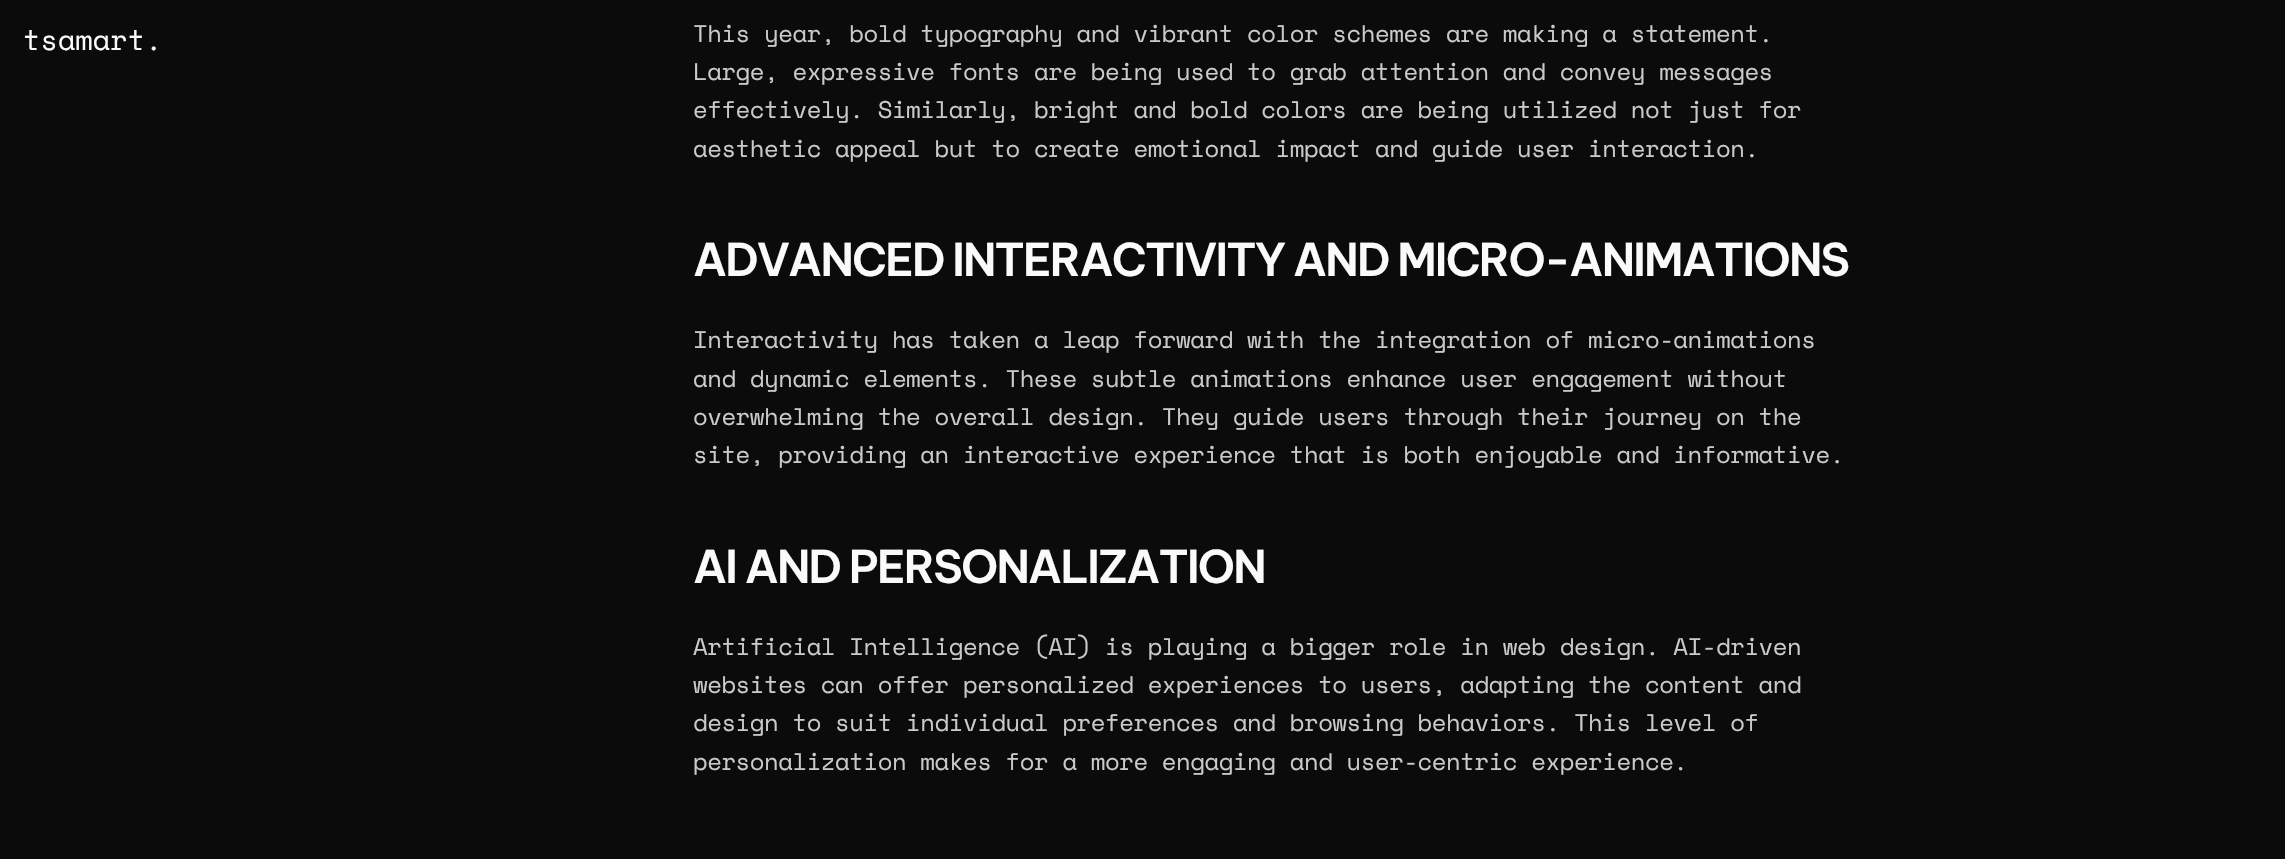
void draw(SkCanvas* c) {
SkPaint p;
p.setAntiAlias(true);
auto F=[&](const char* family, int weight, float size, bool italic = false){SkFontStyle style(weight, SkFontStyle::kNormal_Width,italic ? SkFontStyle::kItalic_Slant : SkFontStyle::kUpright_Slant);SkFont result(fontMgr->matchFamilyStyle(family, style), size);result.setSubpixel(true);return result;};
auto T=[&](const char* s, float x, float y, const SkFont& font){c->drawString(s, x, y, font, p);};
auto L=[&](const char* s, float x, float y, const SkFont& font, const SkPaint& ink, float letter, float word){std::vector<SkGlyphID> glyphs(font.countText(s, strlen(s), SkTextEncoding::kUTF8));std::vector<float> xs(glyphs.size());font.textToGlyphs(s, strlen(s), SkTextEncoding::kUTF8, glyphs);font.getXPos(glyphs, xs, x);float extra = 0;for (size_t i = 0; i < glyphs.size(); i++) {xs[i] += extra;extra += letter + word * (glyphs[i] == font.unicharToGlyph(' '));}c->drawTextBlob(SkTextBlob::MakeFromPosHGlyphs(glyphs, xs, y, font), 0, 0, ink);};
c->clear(0xff0b0b0b);
auto f1 = F("Space Mono",400,28.5);
p.setColor(0xfffafafa);
T("tsamart.",23,50,f1);
auto f2 = F("Space Mono",400,24);
p.setColor(0xffcacaca);
L("This year, bold typography and vibrant color schemes are making a statement.",693,42,f2,p,-.48,0);
L("Large, expressive fonts are being used to grab attention and convey messages",693,80,f2,p,-.48,0);
L("effectively. Similarly, bright and bold colors are being utilized not just for",693,118,f2,p,-.48,0);
L("aesthetic appeal but to create emotional impact and guide user interaction.",693,157,f2,p,-.48,0);
auto f3 = F("Be Vietnam Pro",600,45);
p.setColor(0xfffafafa);
L("ADVANCED INTERACTIVITY AND MICRO-ANIMATIONS",693,276,f3,p,-1.8,0);
p.setColor(0xffcacaca);
L("Interactivity has taken a leap forward with the integration of micro-animations",693,348,f2,p,-.48,0);
L("and dynamic elements. These subtle animations enhance user engagement without",693,387,f2,p,-.48,0);
L("overwhelming the overall design. They guide users through their journey on the",693,425,f2,p,-.48,0);
L("site, providing an interactive experience that is both enjoyable and informative.",693,463,f2,p,-.48,0);
p.setColor(0xfffafafa);
L("AI AND PERSONALIZATION",693,583,f3,p,-1.8,0);
p.setColor(0xffcacaca);
L("Artificial Intelligence (AI) is playing a bigger role in web design. AI-driven",693,655,f2,p,-.48,0);
L("websites can offer personalized experiences to users, adapting the content and",693,693,f2,p,-.48,0);
L("design to suit individual preferences and browsing behaviors. This level of",693,731,f2,p,-.48,0);
L("personalization makes for a more engaging and user-centric experience.",693,770,f2,p,-.48,0);
}
